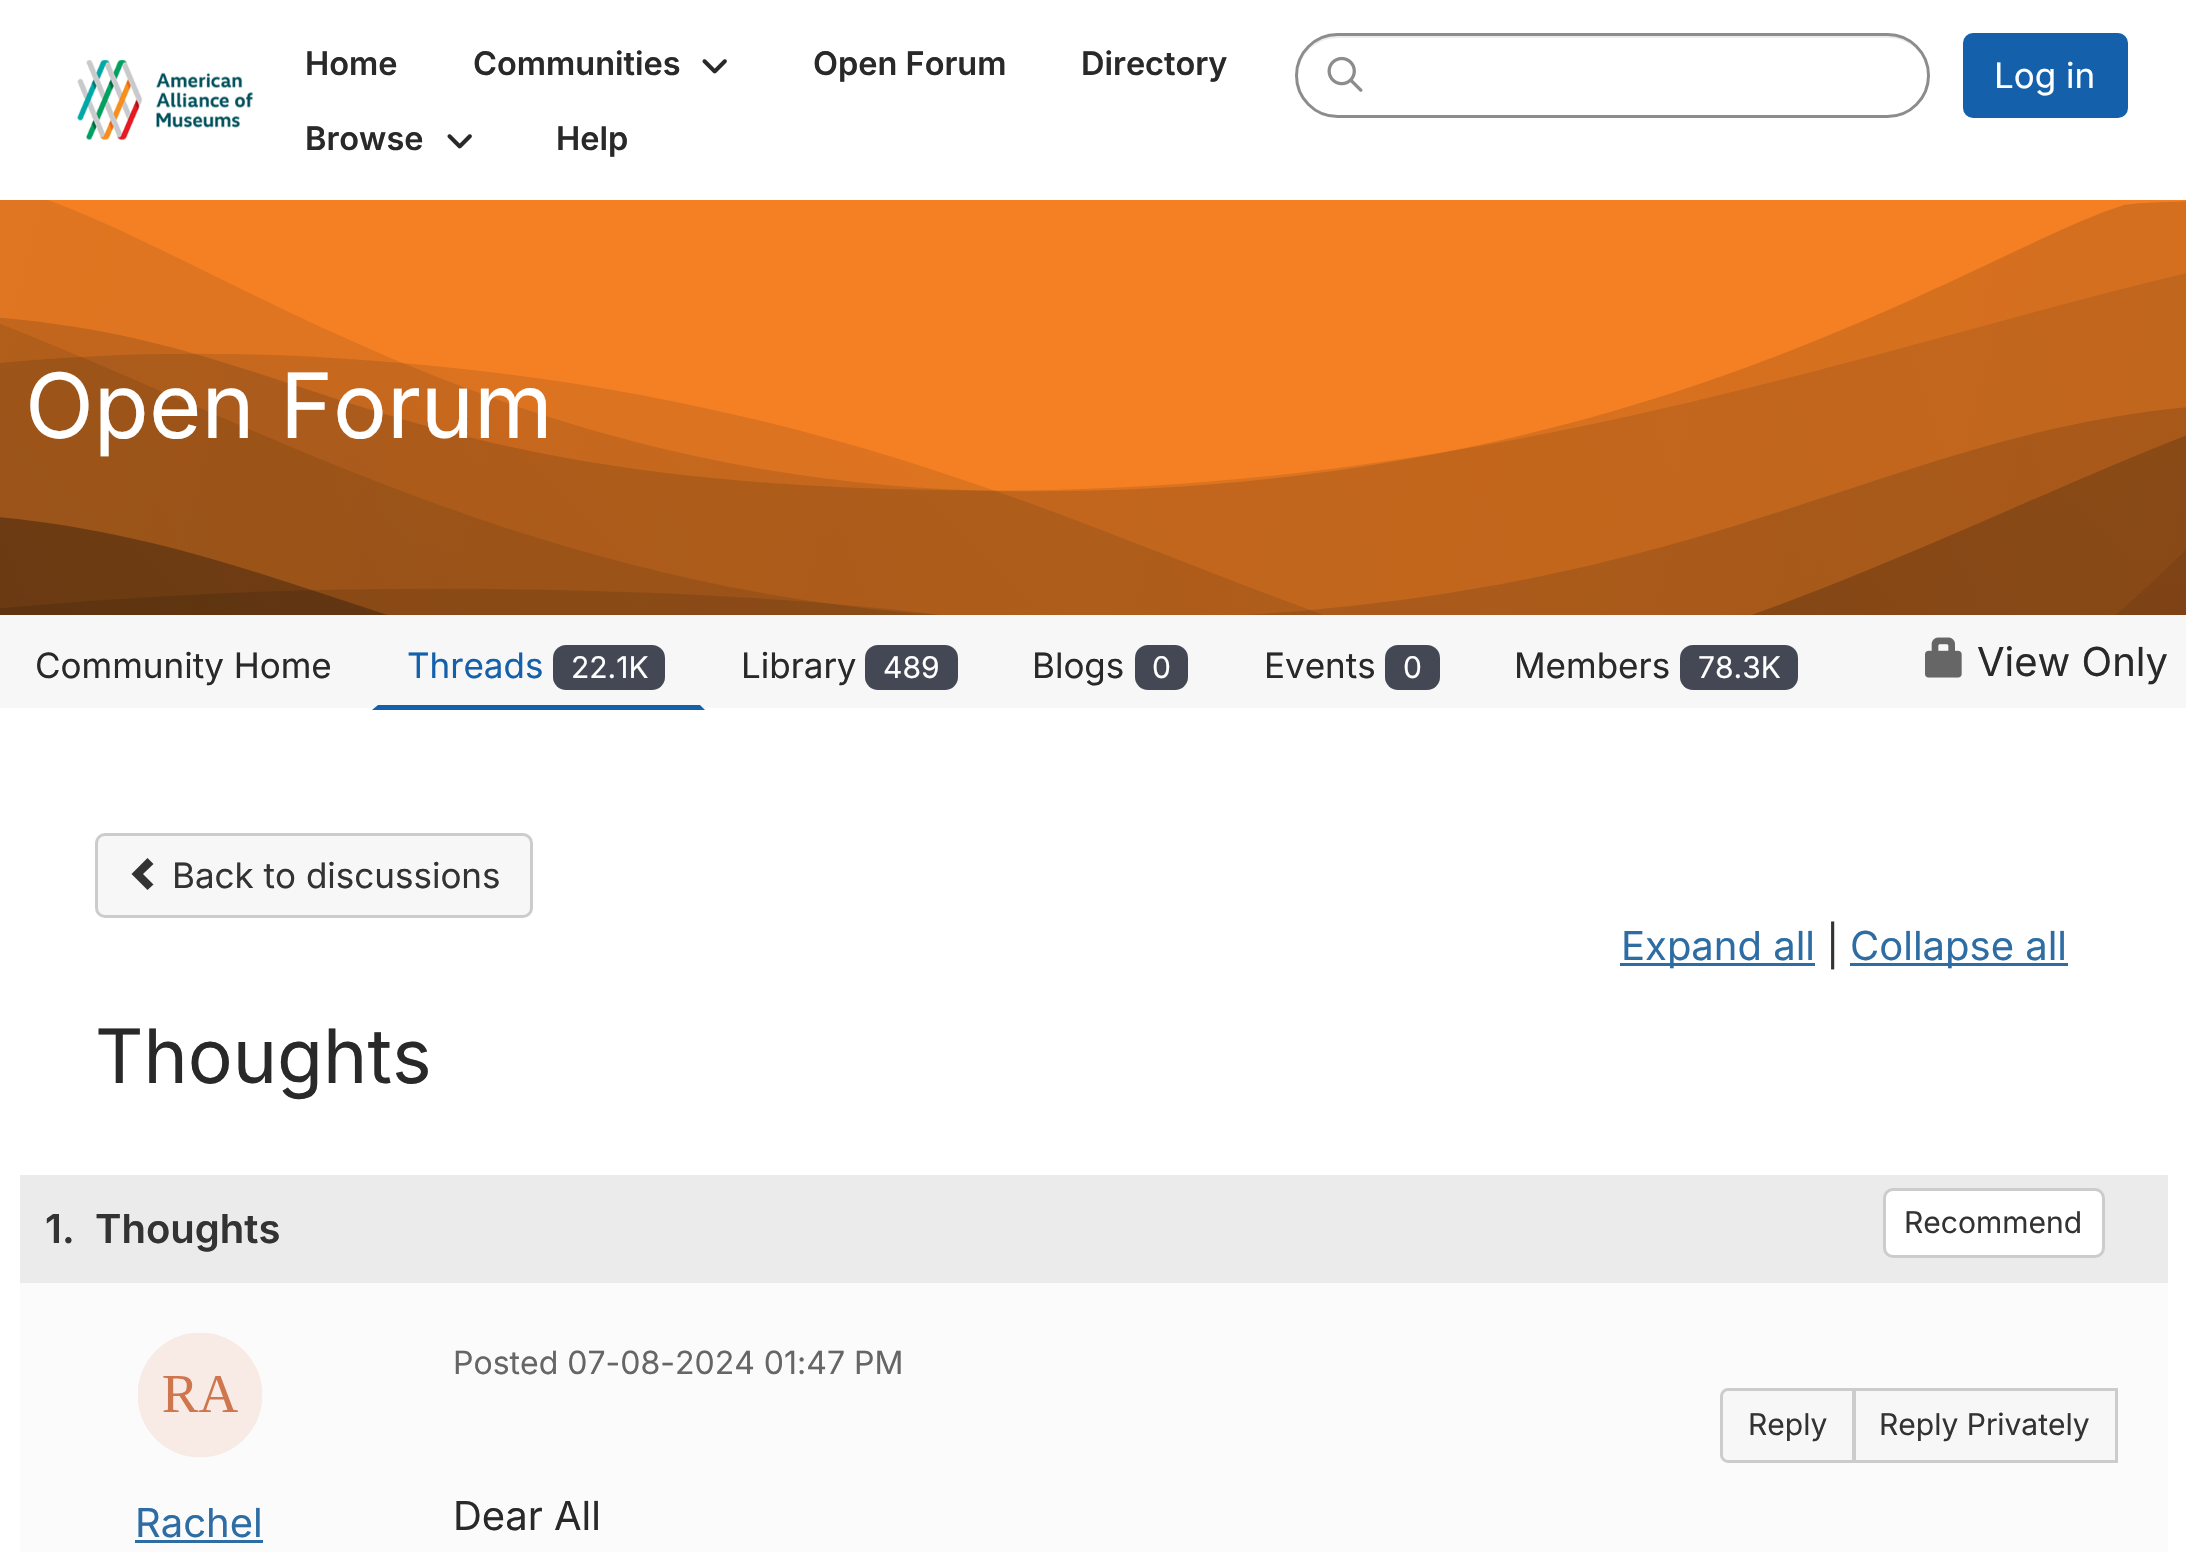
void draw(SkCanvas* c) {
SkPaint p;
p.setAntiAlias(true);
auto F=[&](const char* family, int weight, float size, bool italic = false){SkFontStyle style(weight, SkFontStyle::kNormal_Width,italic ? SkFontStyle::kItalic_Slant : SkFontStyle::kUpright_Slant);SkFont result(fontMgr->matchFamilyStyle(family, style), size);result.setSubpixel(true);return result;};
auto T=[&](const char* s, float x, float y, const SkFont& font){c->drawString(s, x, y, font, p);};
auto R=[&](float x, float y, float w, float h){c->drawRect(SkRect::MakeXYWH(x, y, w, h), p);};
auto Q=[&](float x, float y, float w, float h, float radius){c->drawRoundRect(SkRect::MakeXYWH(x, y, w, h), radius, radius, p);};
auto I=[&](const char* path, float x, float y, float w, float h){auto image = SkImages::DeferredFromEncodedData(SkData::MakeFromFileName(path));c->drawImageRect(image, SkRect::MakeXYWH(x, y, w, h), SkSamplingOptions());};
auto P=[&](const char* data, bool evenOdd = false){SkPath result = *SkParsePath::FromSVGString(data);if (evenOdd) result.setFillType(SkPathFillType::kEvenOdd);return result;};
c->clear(0xffffffff);
I("1.png",77,60,176,80);
auto f1 = F("Inter",600,32.5);
p.setColor(0xff292929);
T("Home",305,75,f1);
T("Communities",473,75,f1);
I("2.png",702,59,25,15);
T("Open Forum",813,75,f1);
T("Directory",1081,75,f1);
T("Browse",305,150,f1);
I("2.png",447,134,25,15);
T("Help",556,150,f1);
p.setColor(0xffececec);
c->drawPath(P("M1338 38h550c22 0 39 16 40 38c1-22-18-41-40-41h-550c-22 0-41 19-40 41c1-22 18-38 40-38z"),p);
p.setStroke(true);
p.setStrokeWidth(3);
p.setColor(0xff8c8c8c);
c->drawRoundRect(SkRect::MakeXYWH(1296.5,34.5,632,82),41,41,p);
I("3.png",1327,56,36,36);
p.setStroke(false);
p.setColor(0xff1460aa);
c->drawRoundRect(SkRect::MakeXYWH(1964.5,34.5,162,82),8.5,8.5,p);
p.setStroke(true);
c->drawRoundRect(SkRect::MakeXYWH(1964.5,34.5,162,82),8.5,8.5,p);
auto f2 = F("Inter",400,35);
p.setStroke(false);
p.setColor(0xffffffff);
T("Log in",1994,88,f2);
I("4.png",0,200,2186,415);
auto f3 = F("Inter",400,90);
T("Open Forum",25,438,f3);
p.setColor(0xfff7f7f7);
R(0,615,2186,93);
p.setColor(0xff292929);
T("Community Home",35,678,f2);
p.setColor(0xff1460aa);
c->drawPath(P("M705 710h-333l6-5h322z"),p);
T("Threads",407,678,f2);
p.setColor(0xff444855);
Q(553,645,112,45,13);
auto f4 = F("Inter",400,30);
p.setColor(0xffffffff);
T("22.1K",571,678,f4);
p.setColor(0xff292929);
T("Library",741,678,f2);
p.setColor(0xff444855);
Q(865,645,93,45,13);
p.setColor(0xffffffff);
T("489",883,678,f4);
p.setColor(0xff292929);
T("Blogs",1032,678,f2);
p.setColor(0xff444855);
Q(1135,645,53,45,13);
p.setColor(0xffffffff);
T("0",1152,678,f4);
p.setColor(0xff292929);
T("Events",1264,678,f2);
p.setColor(0xff444855);
Q(1385,645,55,45,13);
p.setColor(0xffffffff);
T("0",1403,678,f4);
p.setColor(0xff292929);
T("Members",1514,678,f2);
p.setColor(0xff444855);
Q(1680,645,118,45,13);
p.setColor(0xffffffff);
T("78.3K",1698,678,f4);
I("5.png",1925,637,37,41);
auto f5 = F("Inter",400,40);
p.setColor(0xff292929);
T("View Only",1977,676,f5);
p.setColor(0xfff7f7f7);
c->drawRoundRect(SkRect::MakeXYWH(96.5,834.5,435,82),8.5,8.5,p);
p.setStroke(true);
p.setColor(0xffcccccc);
c->drawRoundRect(SkRect::MakeXYWH(96.5,834.5,435,82),8.5,8.5,p);
p.setStroke(false);
p.setColor(0xff333333);
c->drawPath(P("M153.5 864l-10.5 10l10.5 10.5l-6 5.5l-16-16l16-16z"),p);
T("Back to discussions",172,888,f2);
p.setColor(0xff2e6da4);
R(1620,963,195,3);
T("Expand all",1621,960,f5);
p.setColor(0xff333333);
T("|",1826,960,f5);
p.setColor(0xff2e6da4);
R(1850,963,218,3);
T("Collapse all",1850,960,f5);
auto f6 = F("Inter",400,75);
p.setColor(0xff292929);
T("Thoughts",95,1083,f6);
p.setColor(0xfffbfbfb);
R(20,1283,2148,269);
p.setColor(0xffebebeb);
R(20,1175,2148,108);
auto f7 = F("Inter",600,40);
p.setColor(0xff333333);
T("1.",45,1243,f7);
T("Thoughts",95,1243,f7);
p.setColor(0xffffffff);
c->drawRoundRect(SkRect::MakeXYWH(1884.5,1189.5,219,67),8.5,8.5,p);
p.setStroke(true);
p.setColor(0xffcccccc);
c->drawRoundRect(SkRect::MakeXYWH(1884.5,1189.5,219,67),8.5,8.5,p);
p.setStroke(false);
p.setColor(0xff333333);
T("Recommend",1904,1233,f4);
I("6.png",138,1333,125,125);
p.setColor(0xff2e6da4);
T("Rachel",135,1537,f5);
R(135,1540,128,3);
auto f8 = F("Inter",400,32);
p.setColor(0xff666666);
T("Posted 07-08-2024 01:47 PM",453,1374,f8);
p.setColor(0xfff7f7f7);
c->drawPath(P("M1728 1389.5h125.5v72h-125.5c-3.5 0-6.5-3-6.5-6.5v-59c0-3.5 3-6.5 6.5-6.5z"),p);
p.setStroke(true);
p.setColor(0xffcccccc);
c->drawPath(P("M1728 1389.5h125.5v72h-125.5c-3.5 0-6.5-3-6.5-6.5v-59c0-3.5 3-6.5 6.5-6.5z"),p);
p.setStroke(false);
p.setColor(0xff333333);
T("Reply",1748,1435,f4);
p.setColor(0xfff7f7f7);
c->drawRect(SkRect::MakeXYWH(1854.5,1389.5,262,72),p);
p.setStroke(true);
p.setColor(0xffcccccc);
c->drawRect(SkRect::MakeXYWH(1854.5,1389.5,262,72),p);
p.setStroke(false);
p.setColor(0xff333333);
T("Reply Privately",1879,1435,f4);
p.setColor(0xff292929);
T("Dear All",453,1530,f5);
}
